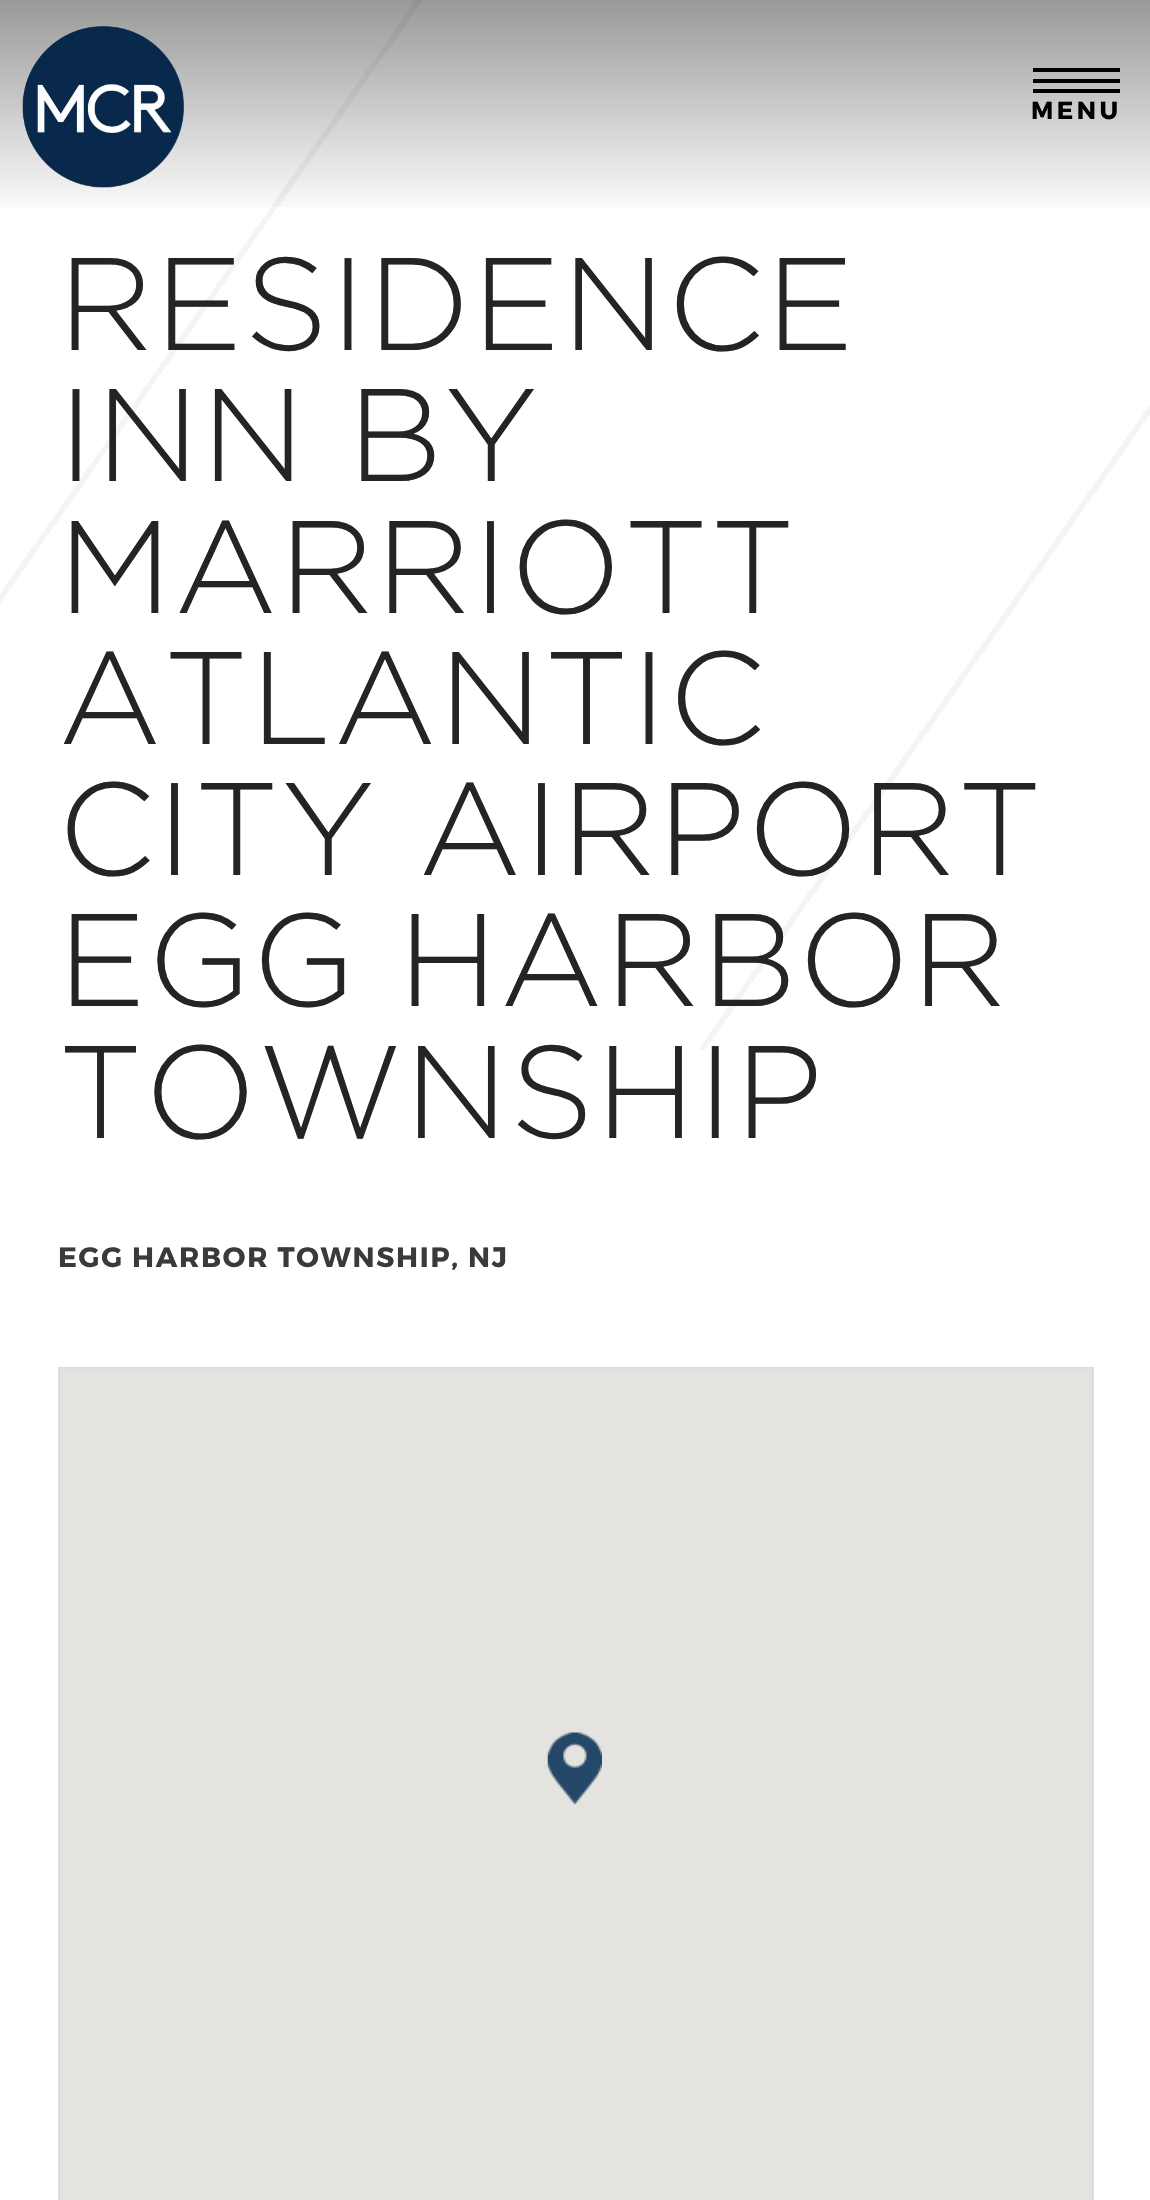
void draw(SkCanvas* c) {
SkPaint p;
p.setAntiAlias(true);
auto F=[&](const char* family, int weight, float size, bool italic = false){SkFontStyle style(weight, SkFontStyle::kNormal_Width,italic ? SkFontStyle::kItalic_Slant : SkFontStyle::kUpright_Slant);SkFont result(fontMgr->matchFamilyStyle(family, style), size);result.setSubpixel(true);return result;};
auto L=[&](const char* s, float x, float y, const SkFont& font, const SkPaint& ink, float letter, float word){std::vector<SkGlyphID> glyphs(font.countText(s, strlen(s), SkTextEncoding::kUTF8));std::vector<float> xs(glyphs.size());font.textToGlyphs(s, strlen(s), SkTextEncoding::kUTF8, glyphs);font.getXPos(glyphs, xs, x);float extra = 0;for (size_t i = 0; i < glyphs.size(); i++) {xs[i] += extra;extra += letter + word * (glyphs[i] == font.unicharToGlyph(' '));}c->drawTextBlob(SkTextBlob::MakeFromPosHGlyphs(glyphs, xs, y, font), 0, 0, ink);};
auto R=[&](float x, float y, float w, float h){c->drawRect(SkRect::MakeXYWH(x, y, w, h), p);};
auto I=[&](const char* path, float x, float y, float w, float h){auto image = SkImages::DeferredFromEncodedData(SkData::MakeFromFileName(path));c->drawImageRect(image, SkRect::MakeXYWH(x, y, w, h), SkSamplingOptions());};
auto P=[&](const char* data, bool evenOdd = false){SkPath result = *SkParsePath::FromSVGString(data);if (evenOdd) result.setFillType(SkPathFillType::kEvenOdd);return result;};
c->clear(0xffffffff);
p.setColor(0xfff4f4f4);
c->drawPath(P("M416 0h7l-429 612h-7z"),p);
{
const SkColor colors[] = {0x66000000,0x00000000};
const float stops[] = {0,1};
const SkPoint ends[] = {{576,0}, {576,219}};
p.setShader(SkGradientShader::MakeLinear(ends, colors, stops, 2, SkTileMode::kClamp));
p.setAlpha(255);
}
R(0,0,1150,207);
I("1.png",22,26,162,162);
p.setShader(nullptr);
p.setColor(0xff000000);
R(1033,68,87,4);
R(1033,79,87,4);
R(1033,89,87,4);
auto f1 = F("Montserrat",700,24.5);
L("MENU",1031,119,f1,p,3.5,0);
auto f2 = F("Gotham",300,131.25);
p.setColor(0xff242424);
L("RESIDENCE",58,350,f2,p,1.75,0);
L("INN BY",58,481,f2,p,1.75,0);
p.setColor(0xfff4f4f4);
c->drawPath(P("M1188 350h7l-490 700h-7z"),p);
p.setColor(0xff242424);
L("MARRIOTT",58,613,f2,p,1.75,0);
L("ATLANTIC",58,744,f2,p,1.75,0);
L("CITY AIRPORT",58,875,f2,p,1.75,0);
L("EGG HARBOR",58,1006,f2,p,1.75,0);
L("TOWNSHIP",58,1138,f2,p,1.75,0);
auto f3 = F("Montserrat",700,28);
p.setColor(0xff3a3a3c);
L("EGG HARBOR TOWNSHIP, NJ",58,1267,f3,p,1.75,0);
p.setStroke(true);
p.setStrokeWidth(2);
p.setColor(0xffdedede);
c->drawRect(SkRect::MakeXYWH(59,1368,1034,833),p);
p.setStroke(false);
p.setColor(0xffe5e3df);
R(60,1369,1032,831);
I("2.png",547,1732,55,73);
}
